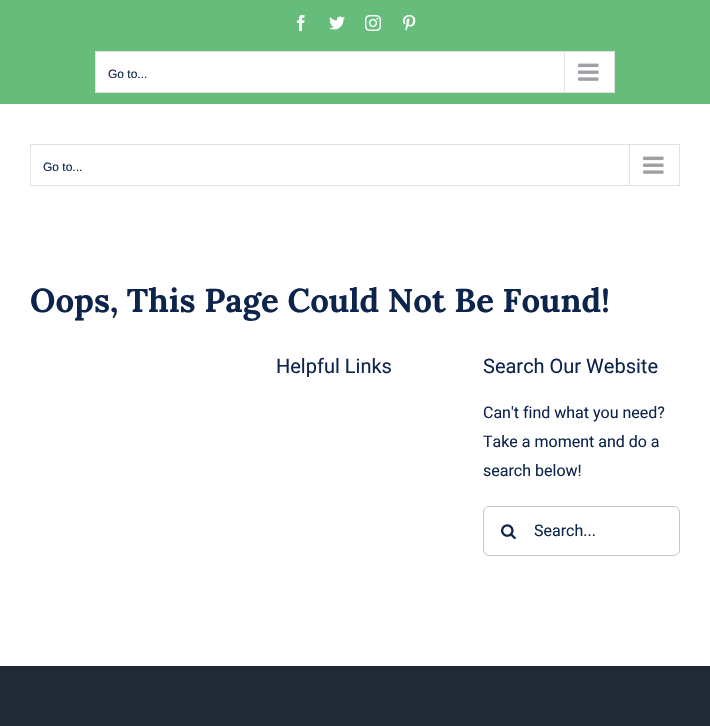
void draw(SkCanvas* c) {
SkPaint p;
p.setAntiAlias(true);
auto F=[&](const char* family, int weight, float size, bool italic = false){SkFontStyle style(weight, SkFontStyle::kNormal_Width,italic ? SkFontStyle::kItalic_Slant : SkFontStyle::kUpright_Slant);SkFont result(fontMgr->matchFamilyStyle(family, style), size);result.setSubpixel(true);return result;};
auto T=[&](const char* s, float x, float y, const SkFont& font){c->drawString(s, x, y, font, p);};
auto R=[&](float x, float y, float w, float h){c->drawRect(SkRect::MakeXYWH(x, y, w, h), p);};
auto I=[&](const char* path, float x, float y, float w, float h){auto image = SkImages::DeferredFromEncodedData(SkData::MakeFromFileName(path));c->drawImageRect(image, SkRect::MakeXYWH(x, y, w, h), SkSamplingOptions());};
c->clear(0xffffffff);
p.setColor(0xff65bc7b);
R(0,0,710,104);
I("1.png",297,15,8,16);
I("2.png",329,16,16,14);
I("3.png",365,15,16,16);
I("4.png",402,15,14,16);
p.setColor(0xffffffff);
c->drawRect(SkRect::MakeXYWH(95.5,51.5,519,41),p);
p.setStroke(true);
p.setStrokeWidth(1);
p.setColor(0xffe2e2e2);
c->drawRect(SkRect::MakeXYWH(95.5,51.5,519,41),p);
auto f1 = F("Liberation Sans",400,12);
p.setStroke(false);
p.setColor(0xff0d244c);
T("Go to...",108,78,f1);
p.setColor(0xffe2e2e2);
R(564,52,1,40);
I("5.png",578,63,21,18);
p.setStroke(true);
c->drawRect(SkRect::MakeXYWH(30.5,144.5,649,41),p);
p.setStroke(false);
p.setColor(0xff0d244c);
T("Go to...",43,171,f1);
p.setColor(0xffe2e2e2);
R(629,145,1,40);
I("5.png",643,156,21,18);
auto f2 = F("Lora",700,33);
p.setColor(0xff0d244c);
T("Oops, This Page Could Not Be Found!",30,312,f2);
auto f3 = F("Roboto",400,20);
T("Helpful Links",276,373,f3);
T("Search Our Website",483,373,f3);
auto f4 = F("Roboto",400,16);
T("Can't find what you need?",483,418,f4);
T("Take a moment and do a",483,447,f4);
T("search below!",483,476,f4);
p.setStroke(true);
p.setColor(0xffc0c6d0);
c->drawRoundRect(SkRect::MakeXYWH(483.5,506.5,196,49),5.5,5.5,p);
I("6.png",501,524,15,16);
p.setStroke(false);
p.setColor(0xff0d244c);
T("Search...",534,536,f4);
p.setColor(0xff212934);
R(0,666,710,60);
}
